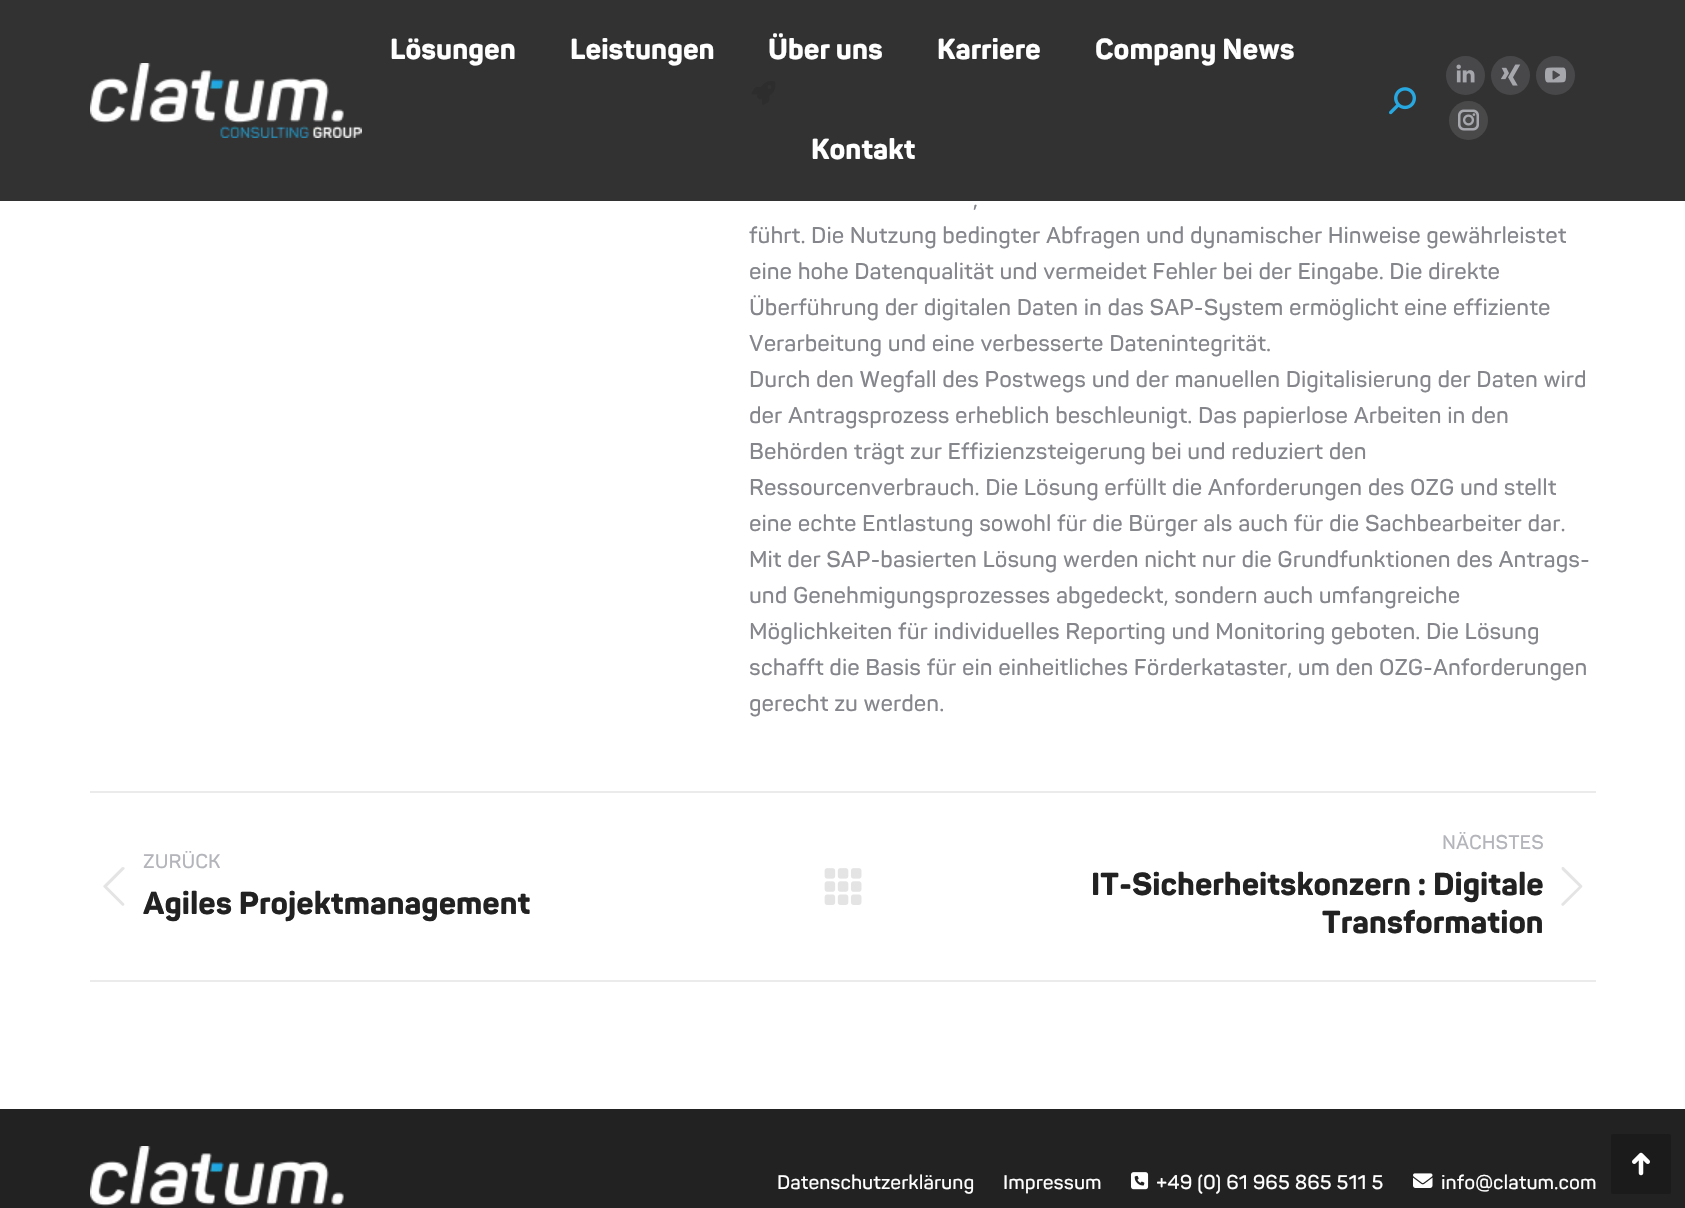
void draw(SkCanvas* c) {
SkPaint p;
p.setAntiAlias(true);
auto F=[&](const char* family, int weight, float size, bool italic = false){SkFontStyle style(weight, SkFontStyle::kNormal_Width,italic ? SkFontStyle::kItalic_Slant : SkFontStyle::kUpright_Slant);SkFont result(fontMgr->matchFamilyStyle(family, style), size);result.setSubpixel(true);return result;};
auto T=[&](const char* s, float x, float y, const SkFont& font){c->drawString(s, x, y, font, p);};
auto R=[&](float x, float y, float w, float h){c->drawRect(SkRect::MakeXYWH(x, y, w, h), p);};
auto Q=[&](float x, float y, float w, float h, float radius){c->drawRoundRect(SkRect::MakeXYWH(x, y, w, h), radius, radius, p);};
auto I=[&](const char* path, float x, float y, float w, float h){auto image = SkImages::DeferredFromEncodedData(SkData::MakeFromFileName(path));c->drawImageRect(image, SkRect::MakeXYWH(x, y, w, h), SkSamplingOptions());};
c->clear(0xffffffff);
I("7.png",751,81,25,24);
p.setColor(0xed222222);
R(0,0,1685,201);
I("1.png",90,63,272,75);
auto f1 = F("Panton",800,28.5);
p.setColor(0xffffffff);
T("Lösungen",390,59,f1);
T("Leistungen",570,59,f1);
T("Über uns",768,59,f1);
T("Karriere",937,59,f1);
T("Company News",1095,59,f1);
T("Kontakt",811,159,f1);
I("2.png",1389,87,27,28);
p.setColor(0xff48484a);
c->drawCircle(1465.5,75.5,19.5,p);
I("3.png",1456,64,19,19);
c->drawCircle(1510.5,75.5,19.5,p);
I("4.png",1501,64,20,22);
c->drawCircle(1555.5,75.5,19.5,p);
I("5.png",1545,67,21,16);
p.setColor(0x33a3a4aa);
c->drawCircle(1468.5,120.5,19.5,p);
I("6.png",1458,109,21,22);
auto f2 = F("Panton",600,22.5);
p.setColor(0xff85868c);
T(",",973,207,f2);
T("führt. Die Nutzung bedingter Abfragen und dynamischer Hinweise gewährleistet",749,243,f2);
T("eine hohe Datenqualität und vermeidet Fehler bei der Eingabe. Die direkte",749,279,f2);
T("Überführung der digitalen Daten in das SAP-System ermöglicht eine effiziente",749,315,f2);
T("Verarbeitung und eine verbesserte Datenintegrität.",749,351,f2);
T("Durch den Wegfall des Postwegs und der manuellen Digitalisierung der Daten wird",749,387,f2);
T("der Antragsprozess erheblich beschleunigt. Das papierlose Arbeiten in den",749,423,f2);
T("Behörden trägt zur Effizienzsteigerung bei und reduziert den",749,459,f2);
T("Ressourcenverbrauch. Die Lösung erfüllt die Anforderungen des OZG und stellt",749,495,f2);
T("eine echte Entlastung sowohl für die Bürger als auch für die Sachbearbeiter dar.",749,531,f2);
T("Mit der SAP-basierten Lösung werden nicht nur die Grundfunktionen des Antrags-",749,567,f2);
T("und Genehmigungsprozesses abgedeckt, sondern auch umfangreiche",749,603,f2);
T("Möglichkeiten für individuelles Reporting und Monitoring geboten. Die Lösung",749,639,f2);
T("schafft die Basis für ein einheitliches Förderkataster, um den OZG-Anforderungen",749,675,f2);
T("gerecht zu werden.",749,711,f2);
p.setColor(0xffebebeb);
R(90,791,1506,2);
R(90,980,1506,2);
auto f3 = F("Panton",600,19.5);
p.setColor(0xffb4b5bb);
T("ZURÜCK",143,868,f3);
I("8.png",103,867,22,39);
auto f4 = F("Panton",800,31.5);
p.setColor(0xff222222);
T("Agiles Projektmanagement",143,914,f4);
I("9.png",824,868,38,37);
p.setColor(0xffb4b5bb);
T("NÄCHSTES",1442,849,f3);
p.setColor(0xff222222);
T("IT-Sicherheitskonzern : Digitale",1091,895,f4);
T("Transformation",1322,933,f4);
I("10.png",1561,867,22,39);
R(0,1109,1685,99);
I("11.png",90,1146,254,61);
p.setColor(0xffffffff);
T("Datenschutzerklärung",777,1189,f3);
T("Impressum",1003,1189,f3);
I("12.png",1131,1172,18,18);
T("+49 (0) 61 965 865 511 5",1156,1189,f3);
I("13.png",1413,1173,20,15);
T("info@clatum.com",1441,1189,f3);
p.setColor(0xff1b1b1b);
Q(1611,1134,60,60,1.5);
I("14.png",1632,1152,18,24);
}
